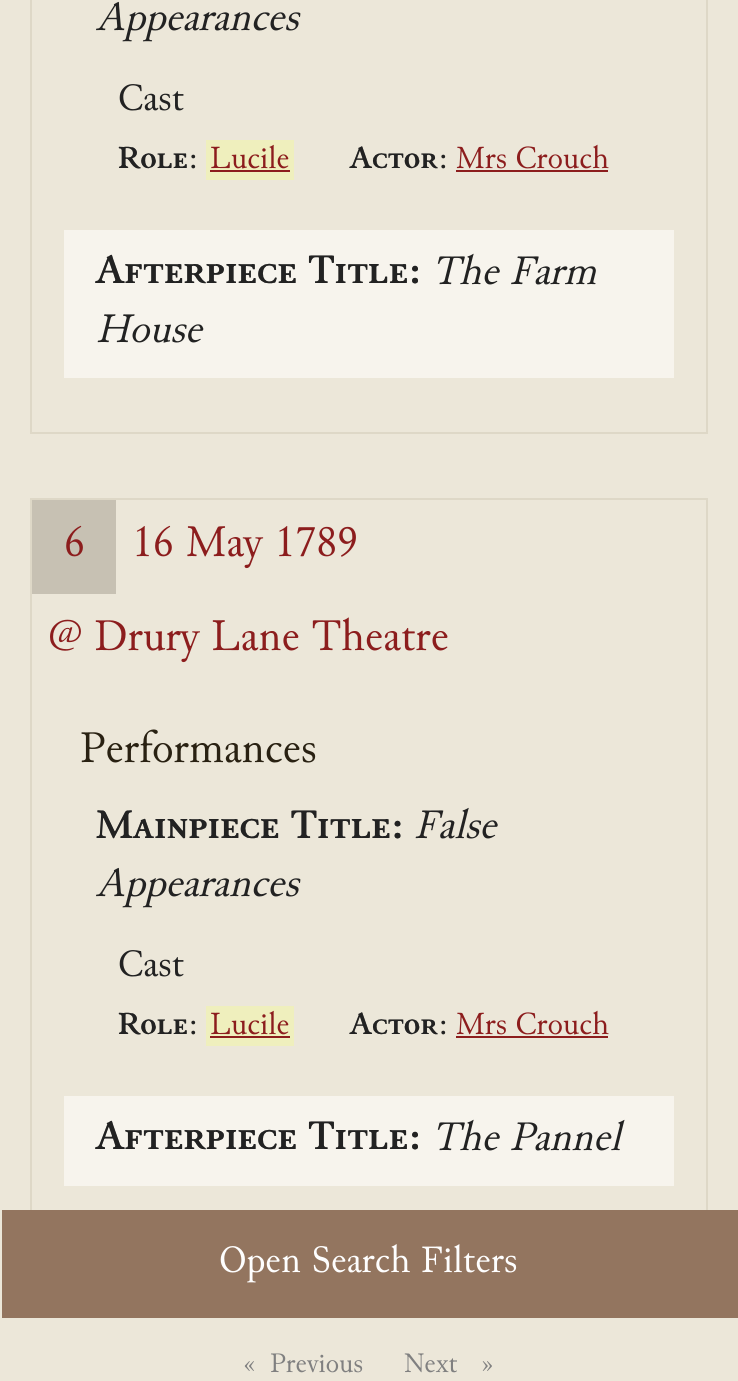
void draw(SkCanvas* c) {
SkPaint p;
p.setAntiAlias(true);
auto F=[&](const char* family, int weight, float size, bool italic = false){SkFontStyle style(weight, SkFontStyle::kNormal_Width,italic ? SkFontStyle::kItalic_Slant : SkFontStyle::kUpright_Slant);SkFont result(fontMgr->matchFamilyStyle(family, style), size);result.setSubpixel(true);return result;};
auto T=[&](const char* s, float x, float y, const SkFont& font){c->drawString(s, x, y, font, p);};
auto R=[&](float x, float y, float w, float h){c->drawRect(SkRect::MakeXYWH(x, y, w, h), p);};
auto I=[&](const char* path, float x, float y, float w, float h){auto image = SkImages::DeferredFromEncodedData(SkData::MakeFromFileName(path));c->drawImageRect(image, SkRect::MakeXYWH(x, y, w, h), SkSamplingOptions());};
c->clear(0xffece7d9);
p.setStroke(true);
p.setStrokeWidth(2);
p.setColor(0xffded8c7);
c->drawRect(SkRect::MakeXYWH(31,-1,676,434),p);
I("1.png",96,1,205,41);
I("2.png",119,84,65,27);
auto f1 = F("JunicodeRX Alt",700,32);
p.setStroke(false);
p.setColor(0xff222222);
T("Role",118,168,f1);
p.setColor(0xffefefbd);
R(206,140,88,40);
p.setColor(0xff8c1d1d);
R(210,170,80,2);
I("3.png",191,154,5,15);
I("4.png",211,144,78,25);
p.setColor(0xff222222);
T("Actor",350,168,f1);
p.setColor(0xff8c1d1d);
R(456,170,152,2);
I("3.png",441,154,5,15);
I("5.png",456,144,153,25);
p.setColor(0xfff7f4ed);
R(64,230,610,148);
auto f2 = F("JunicodeRX Alt",700,41.5);
p.setColor(0xff222222);
T("Afterpiece Title:",96,283,f2);
I("6.png",437,253,159,32);
I("7.png",97,314,107,29);
p.setStroke(true);
p.setColor(0xffded8c7);
c->drawRect(SkRect::MakeXYWH(31,499,676,742),p);
p.setStroke(false);
p.setColor(0xffc7c1b3);
R(32,500,84,94);
I("8.png",66,525,17,32);
I("9.png",136,525,220,44);
I("10.png",50,617,398,46);
I("11.png",81,729,235,34);
p.setColor(0xff222222);
T("Mainpiece Title:",96,838,f2);
I("12.png",415,807,83,32);
I("1.png",96,867,205,41);
I("2.png",119,950,65,27);
T("Role",118,1034,f1);
p.setColor(0xffefefbd);
R(206,1006,88,40);
p.setColor(0xff8c1d1d);
R(210,1036,80,2);
I("3.png",191,1020,5,15);
I("4.png",211,1010,78,25);
p.setColor(0xff222222);
T("Actor",350,1034,f1);
p.setColor(0xff8c1d1d);
R(456,1036,152,2);
I("3.png",441,1020,5,15);
I("5.png",456,1010,153,25);
p.setColor(0xfff7f4ed);
R(64,1096,610,90);
p.setColor(0xff222222);
T("Afterpiece Title:",96,1149,f2);
I("13.png",437,1119,188,32);
I("14.png",244,1361,10,10);
I("15.png",271,1353,92,20);
I("16.png",404,1353,53,20);
I("17.png",482,1361,10,10);
p.setColor(0xff93755f);
R(2,1210,736,108);
I("18.png",220,1244,297,39);
}
